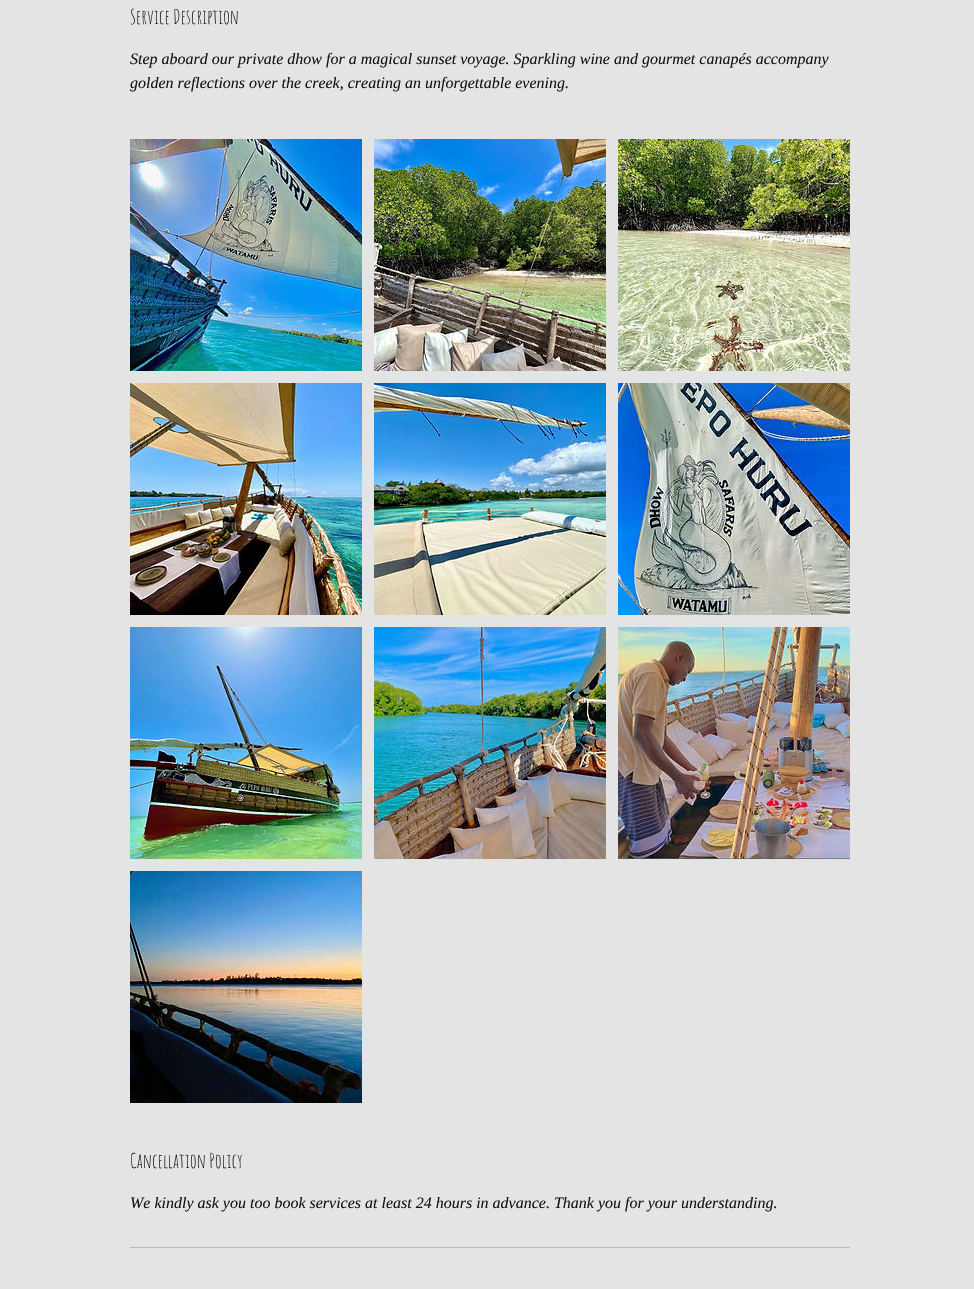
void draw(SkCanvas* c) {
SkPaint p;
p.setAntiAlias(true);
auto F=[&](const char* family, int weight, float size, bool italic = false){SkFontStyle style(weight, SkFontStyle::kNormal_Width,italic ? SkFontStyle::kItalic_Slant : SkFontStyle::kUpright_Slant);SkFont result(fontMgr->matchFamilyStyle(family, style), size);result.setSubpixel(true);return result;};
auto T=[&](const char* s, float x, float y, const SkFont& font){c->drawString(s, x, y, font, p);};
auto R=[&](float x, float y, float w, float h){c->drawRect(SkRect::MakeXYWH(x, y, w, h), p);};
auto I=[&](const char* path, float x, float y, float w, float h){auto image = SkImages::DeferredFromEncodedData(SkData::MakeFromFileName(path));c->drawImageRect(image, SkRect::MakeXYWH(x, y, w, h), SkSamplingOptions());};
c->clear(0xffe4e4e4);
auto f1 = F("Amatic SC",400,20);
p.setColor(0xff141414);
T("Service Description",130,24,f1);
auto f2 = F("Liberation Serif",400,16,true);
T("Step aboard our private dhow for a magical sunset voyage. Sparkling wine and gourmet canapés accompany",130,64,f2);
T("golden reflections over the creek, creating an unforgettable evening.",130,88,f2);
I("1.png",130,139,232,232);
I("2.png",374,139,232,232);
I("3.png",618,139,232,232);
I("4.png",130,383,232,232);
I("5.png",374,383,232,232);
I("6.png",618,383,232,232);
I("7.png",130,627,232,232);
I("8.png",374,627,232,232);
I("9.png",618,627,232,232);
I("10.png",130,871,232,232);
T("Cancellation Policy",130,1168,f1);
T("We kindly ask you too book services at least 24 hours in advance. Thank you for your understanding.",130,1208,f2);
p.setColor(0xffbababa);
R(130,1247,720,1);
}
